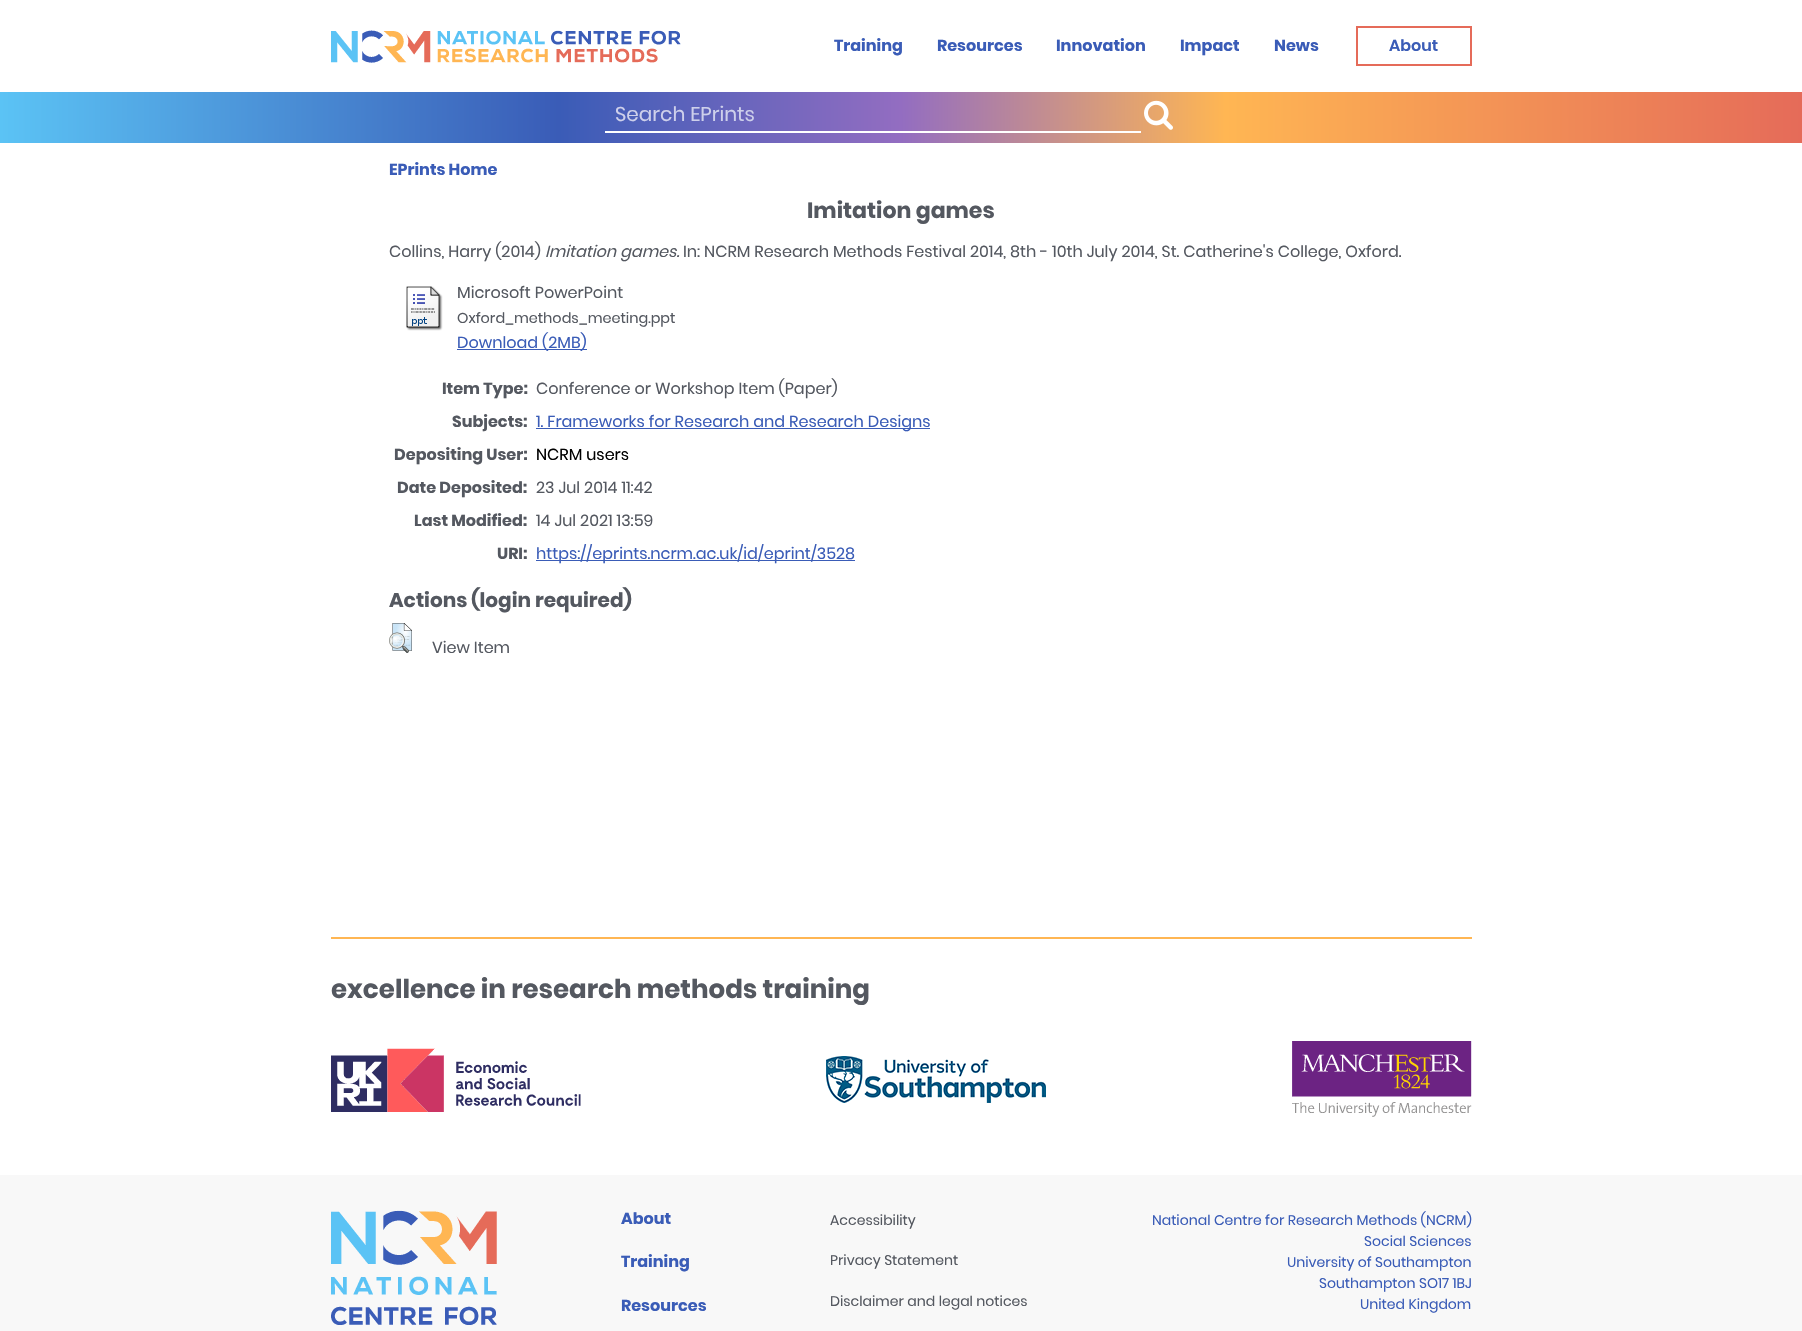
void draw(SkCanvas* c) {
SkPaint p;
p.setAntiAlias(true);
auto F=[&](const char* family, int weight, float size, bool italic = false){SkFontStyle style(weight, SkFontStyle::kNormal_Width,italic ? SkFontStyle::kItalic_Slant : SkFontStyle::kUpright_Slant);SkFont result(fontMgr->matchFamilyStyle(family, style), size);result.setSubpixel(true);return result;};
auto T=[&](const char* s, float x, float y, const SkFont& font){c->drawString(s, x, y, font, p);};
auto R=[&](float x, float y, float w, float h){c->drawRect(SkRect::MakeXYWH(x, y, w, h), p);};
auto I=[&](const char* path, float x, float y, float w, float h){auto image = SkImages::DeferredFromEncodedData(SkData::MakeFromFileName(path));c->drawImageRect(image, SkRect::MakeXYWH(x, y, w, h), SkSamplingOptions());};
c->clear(0xffffffff);
I("1.png",331,30,350,33);
auto f1 = F("Poppins",700,16);
p.setColor(0xff3a5cb7);
T("Training",834,51,f1);
T("Resources",937,51,f1);
T("Innovation",1056,51,f1);
T("Impact",1180,51,f1);
T("News",1274,51,f1);
p.setStroke(true);
p.setStrokeWidth(2);
p.setColor(0xffe56b59);
c->drawRect(SkRect::MakeXYWH(1357,27,114,38),p);
auto f2 = F("Poppins",600,16);
p.setStroke(false);
p.setColor(0xff3a5cb7);
T("About",1389,51,f2);
{
const SkColor colors[] = {0xff5bc3f5,0xff3a5cb7,0xff936dc1,0xffffb653,0xffe56b59};
const float stops[] = {0,.31,.5,.68,1};
const SkPoint ends[] = {{0,118}, {1802,117}};
p.setShader(SkGradientShader::MakeLinear(ends, colors, stops, 5, SkTileMode::kClamp));
p.setAlpha(255);
}
R(0,92,1802,51);
p.setShader(nullptr);
p.setColor(0xffffffff);
R(605,131,536,2);
auto f3 = F("Poppins",400,20);
p.setColor(0xffced0eb);
T("Search EPrints",615,121,f3);
I("2.png",1144,100,29,30);
p.setColor(0xff3a5cb7);
T("EPrints Home",389,175,f1);
auto f4 = F("Poppins",700,22);
p.setColor(0xff545860);
T("Imitation games",807,218,f4);
auto f5 = F("Poppins",400,16);
T("Collins, Harry (2014)",389,257,f5);
auto f6 = F("Poppins",400,16,true);
T("Imitation games.",545,257,f6);
T("In: NCRM Research Methods Festival 2014, 8th - 10th July 2014, St. Catherine's College, Oxford.",683,257,f5);
I("3.png",406,286,37,45);
T("Microsoft PowerPoint",457,298,f5);
auto f7 = F("Poppins",400,14.4);
T("Oxford_methods_meeting.ppt",457,323,f7);
p.setColor(0xff3a5cb7);
R(457,349,130,1);
T("Download (2MB)",457,348,f5);
p.setColor(0xff545860);
T("Item Type:",442,394,f1);
T("Conference or Workshop Item (Paper)",536,394,f5);
T("Subjects:",452,427,f1);
p.setColor(0xff3a5cb7);
R(536,428,394,1);
T("1. Frameworks for Research and Research Designs",536,427,f5);
p.setColor(0xff545860);
T("Depositing User:",394,460,f1);
p.setColor(0xff000000);
T("NCRM users",536,460,f5);
p.setColor(0xff545860);
T("Date Deposited:",397,493,f1);
T("23 Jul 2014 11:42",536,493,f5);
T("Last Modified:",414,526,f1);
T("14 Jul 2021 13:59",536,526,f5);
T("URI:",497,559,f1);
p.setColor(0xff3a5cb7);
R(536,560,319,1);
T("https://eprints.ncrm.ac.uk/id/eprint/3528",536,559,f5);
auto f8 = F("Poppins",700,20);
p.setColor(0xff545860);
T("Actions (login required)",389,607,f8);
I("4.png",389,623,23,30);
T("View Item",432,653,f5);
p.setColor(0xffffb653);
R(331,937,1141,2);
auto f9 = F("Poppins",700,26);
p.setColor(0xff545860);
T("excellence in research methods training",331,998,f9);
I("5.png",331,1048,250,64);
I("6.png",826,1056,220,47);
I("7.png",1292,1041,180,76);
p.setColor(0xfff8f8f8);
R(0,1175,1802,156);
I("8.png",331,1210,166,115);
p.setColor(0xff3a5cb7);
T("About",621,1224,f1);
T("Training",621,1267,f1);
T("Resources",621,1311,f1);
auto f10 = F("Poppins",400,14);
p.setColor(0xff545860);
T("Accessibility",830,1225,f10);
T("Privacy Statement",830,1265,f10);
T("Disclaimer and legal notices",830,1306,f10);
p.setColor(0xff3a5cb7);
T("National Centre for Research Methods (NCRM)",1152,1225,f10);
T("Social Sciences",1364,1246,f10);
T("University of Southampton",1287,1267,f10);
T("Southampton SO17 1BJ",1319,1288,f10);
T("United Kingdom",1360,1309,f10);
}
